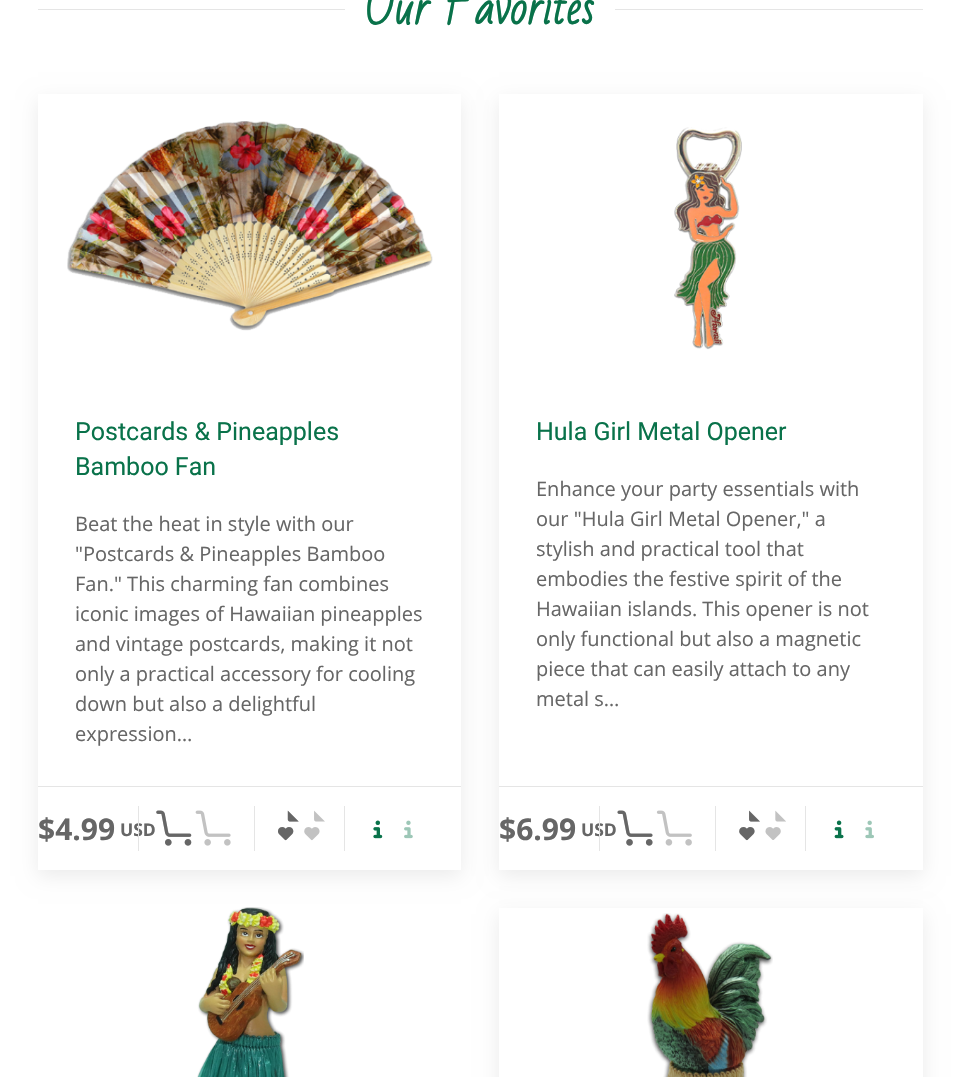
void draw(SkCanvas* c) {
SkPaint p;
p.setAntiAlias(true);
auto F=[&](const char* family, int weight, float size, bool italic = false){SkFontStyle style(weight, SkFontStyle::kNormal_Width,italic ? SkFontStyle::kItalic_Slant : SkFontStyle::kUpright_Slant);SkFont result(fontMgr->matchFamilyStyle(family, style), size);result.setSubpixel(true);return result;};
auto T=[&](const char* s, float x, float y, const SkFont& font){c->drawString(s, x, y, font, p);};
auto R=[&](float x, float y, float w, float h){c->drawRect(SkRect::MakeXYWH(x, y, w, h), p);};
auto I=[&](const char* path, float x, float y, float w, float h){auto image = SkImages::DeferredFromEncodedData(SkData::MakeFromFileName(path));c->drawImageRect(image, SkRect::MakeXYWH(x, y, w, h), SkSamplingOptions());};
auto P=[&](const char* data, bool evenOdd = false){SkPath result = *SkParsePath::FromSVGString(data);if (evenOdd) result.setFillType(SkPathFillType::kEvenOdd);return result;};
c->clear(0xffffffff);
p.setColor(0xffe5e5e5);
R(38,9,307,1);
auto f1 = F("Bad Script",700,44.5);
p.setColor(0xff09724a);
T("Our Favorites",365,24,f1);
p.setColor(0xffe5e5e5);
R(615,9,308,1);
c->save();
c->clipPath(P("M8 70h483v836h-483zm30 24h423v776h-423z",true),true);
p.setColor(0x14000000);
p.setMaskFilter(SkMaskFilter::MakeBlur(kNormal_SkBlurStyle, 9.5));
c->drawRect(SkRect::MakeXYWH(38,100,423,776),p);
p.setMaskFilter(nullptr);
c->restore();
I("1.png",67,121,366,210);
auto f2 = F("Roboto",400,25);
p.setColor(0xff09724a);
T("Postcards & Pineapples",75,440,f2);
T("Bamboo Fan",75,475,f2);
auto f3 = F("Open Sans",400,20);
p.setColor(0xff666666);
T("Beat the heat in style with our",75,531,f3);
T("\"Postcards & Pineapples Bamboo",75,561,f3);
T("Fan.\" This charming fan combines",75,591,f3);
T("iconic images of Hawaiian pineapples",75,621,f3);
T("and vintage postcards, making it not",75,651,f3);
T("only a practical accessory for cooling",75,681,f3);
T("down but also a delightful",75,711,f3);
T("expression…",75,741,f3);
p.setColor(0xffe5e5e5);
R(38,786,423,1);
auto f4 = F("Open Sans",700,30);
p.setColor(0xff666666);
T("$4.99",38,840,f4);
auto f5 = F("Open Sans",700,17.5);
T("USD",120,836,f5);
p.setColor(0xffe5e5e5);
R(138,806,1,45);
I("2.png",156,810,36,36);
I("3.png",156,810,75,36);
R(254,806,1,45);
I("4.png",278,810,21,31);
I("5.png",278,810,47,31);
R(344,806,1,45);
I("6.png",373,820,10,19);
I("7.png",373,820,40,19);
p.setColor(0x14000000);
p.setMaskFilter(SkMaskFilter::MakeBlur(kNormal_SkBlurStyle, 9.5));
c->drawRect(SkRect::MakeXYWH(499,100,424,776),p);
p.setMaskFilter(nullptr);
p.setColor(0xffffffff);
R(499,94,424,776);
I("8.png",674,127,68,223);
p.setColor(0xff09724a);
T("Hula Girl Metal Opener",536,440,f2);
p.setColor(0xff666666);
T("Enhance your party essentials with",536,496,f3);
T("our \"Hula Girl Metal Opener,\" a",536,526,f3);
T("stylish and practical tool that",536,556,f3);
T("embodies the festive spirit of the",536,586,f3);
T("Hawaiian islands. This opener is not",536,616,f3);
T("only functional but also a magnetic",536,646,f3);
T("piece that can easily attach to any",536,676,f3);
T("metal s…",536,706,f3);
p.setColor(0xffe5e5e5);
R(499,786,424,1);
p.setColor(0xff666666);
T("$6.99",499,840,f4);
T("USD",581,836,f5);
p.setColor(0xffe5e5e5);
R(599,806,1,45);
I("9.png",617,810,36,36);
I("10.png",617,810,75,36);
R(715,806,1,45);
I("11.png",739,810,21,31);
I("12.png",739,810,47,30);
R(805,806,1,45);
I("13.png",834,820,10,19);
I("14.png",834,820,40,19);
I("15.png",197,907,107,170);
p.setColor(0x14000000);
p.setMaskFilter(SkMaskFilter::MakeBlur(kNormal_SkBlurStyle, 9.5));
c->drawRect(SkRect::MakeXYWH(499,914,424,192),p);
p.setMaskFilter(nullptr);
p.setColor(0xffffffff);
R(499,908,424,169);
I("16.png",647,913,126,164);
}
